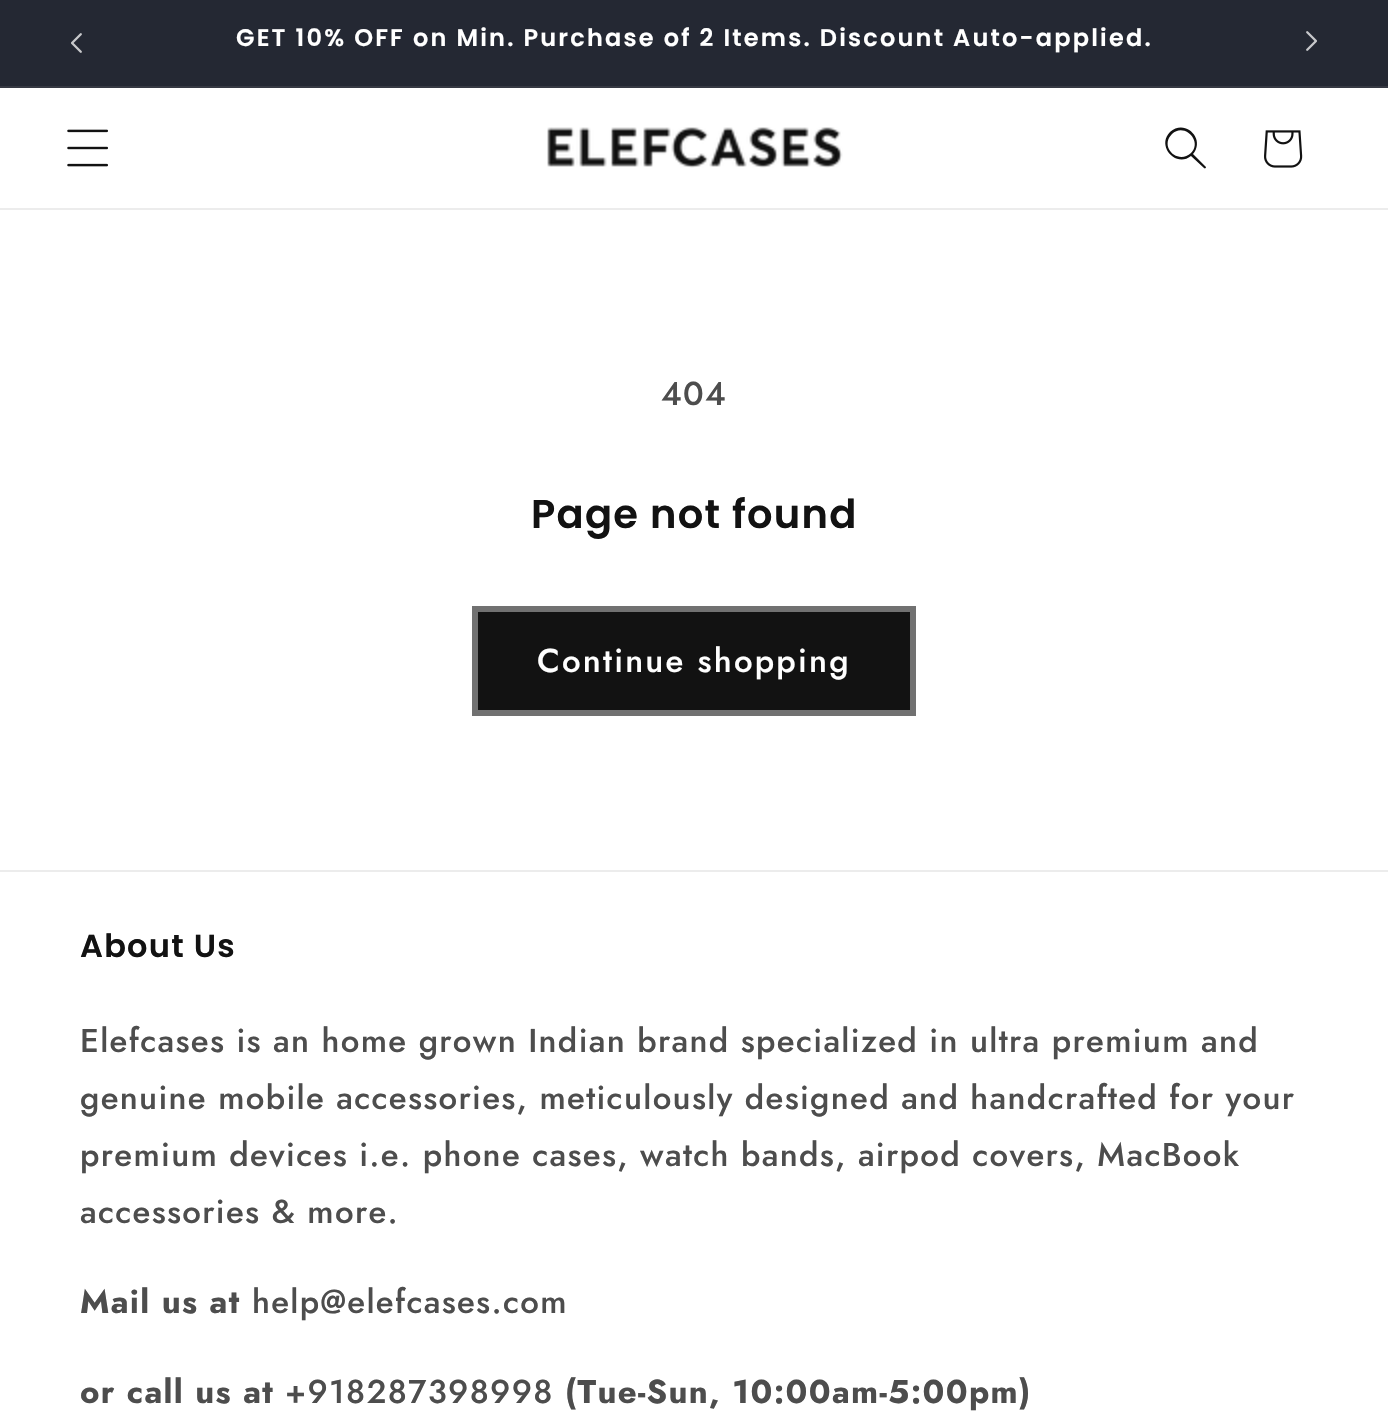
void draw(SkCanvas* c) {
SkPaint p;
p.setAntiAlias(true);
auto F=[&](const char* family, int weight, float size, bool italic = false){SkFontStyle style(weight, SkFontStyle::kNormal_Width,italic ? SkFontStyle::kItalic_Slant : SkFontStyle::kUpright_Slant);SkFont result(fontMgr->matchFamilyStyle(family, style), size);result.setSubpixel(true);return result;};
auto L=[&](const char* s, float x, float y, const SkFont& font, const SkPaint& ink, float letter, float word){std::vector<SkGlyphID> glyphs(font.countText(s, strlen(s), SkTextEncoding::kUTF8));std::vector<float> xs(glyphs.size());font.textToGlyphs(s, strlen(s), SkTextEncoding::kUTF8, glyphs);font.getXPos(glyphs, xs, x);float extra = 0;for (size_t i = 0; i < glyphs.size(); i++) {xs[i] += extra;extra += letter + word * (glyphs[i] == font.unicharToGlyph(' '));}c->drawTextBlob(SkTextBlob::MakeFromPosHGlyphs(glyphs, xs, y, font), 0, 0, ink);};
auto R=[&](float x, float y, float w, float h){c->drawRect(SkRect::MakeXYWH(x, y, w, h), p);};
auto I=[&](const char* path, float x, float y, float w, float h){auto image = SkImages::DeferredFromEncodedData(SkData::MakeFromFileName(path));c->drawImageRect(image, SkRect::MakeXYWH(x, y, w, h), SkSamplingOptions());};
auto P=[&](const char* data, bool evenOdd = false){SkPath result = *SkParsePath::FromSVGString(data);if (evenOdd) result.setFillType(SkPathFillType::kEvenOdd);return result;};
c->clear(0xffffffff);
p.setColor(0xff242833);
R(0,0,1388,86);
p.setColor(0xff363943);
R(0,86,1388,2);
I("1.png",71,33,11,20);
auto f1 = F("Poppins",600,24);
p.setColor(0xffffffff);
L("GET 10% OFF on Min. Purchase of 2 Items. Discount Auto-applied.",236,46,f1,p,2.2,0);
I("2.png",1306,31,11,20);
p.setColor(0xffececec);
R(0,208,1388,2);
I("3.png",67,129,41,38);
I("4.png",547,127,296,41);
p.setColor(0xff121212);
c->drawPath(P("M1191 153c-13 12-32-6-19-19c12-12 31 7 19 19m0 3c-15 12-35-10-21-24c15-14 36 7 23 22l13 13c0 1-1 2-2 1z",true),p);
I("5.png",1264,130,39,38);
auto f2 = F("Jost",500,33);
p.setColor(0xff4d4d4d);
L("404",661,405,f2,p,1.32,0);
auto f3 = F("Poppins",600,40);
p.setColor(0xff121212);
L("Page not found",531,528,f3,p,1.25,0);
R(478,612,432,98);
p.setStroke(true);
p.setStrokeWidth(6);
p.setColor(0xff717171);
c->drawRect(SkRect::MakeXYWH(475,609,438,104),p);
p.setStroke(false);
p.setColor(0xffffffff);
L("Continue shopping",537,672,f2,p,2.2,0);
p.setColor(0xffececec);
R(0,870,1388,2);
auto f4 = F("Poppins",600,32);
p.setColor(0xff121212);
L("About Us",80,957,f4,p,1.25,0);
p.setColor(0xff4d4d4d);
L("Elefcases is an home grown Indian brand specialized in ultra premium and",80,1052,f2,p,1.32,0);
L("genuine mobile accessories, meticulously designed and handcrafted for your",80,1109,f2,p,1.32,0);
L("premium devices i.e. phone cases, watch bands, airpod covers, MacBook",80,1166,f2,p,1.32,0);
L("accessories & more.",80,1223,f2,p,1.32,0);
auto f5 = F("Jost",700,33);
L("Mail us at",80,1313,f5,p,1.32,0);
L("help@elefcases.com",252,1313,f2,p,1.32,0);
L("or call us at",80,1403,f5,p,1.32,0);
L("+918287398998",285,1403,f2,p,1.32,0);
L("(Tue-Sun, 10:00am-5:00pm)",565,1403,f5,p,1.32,0);
}
